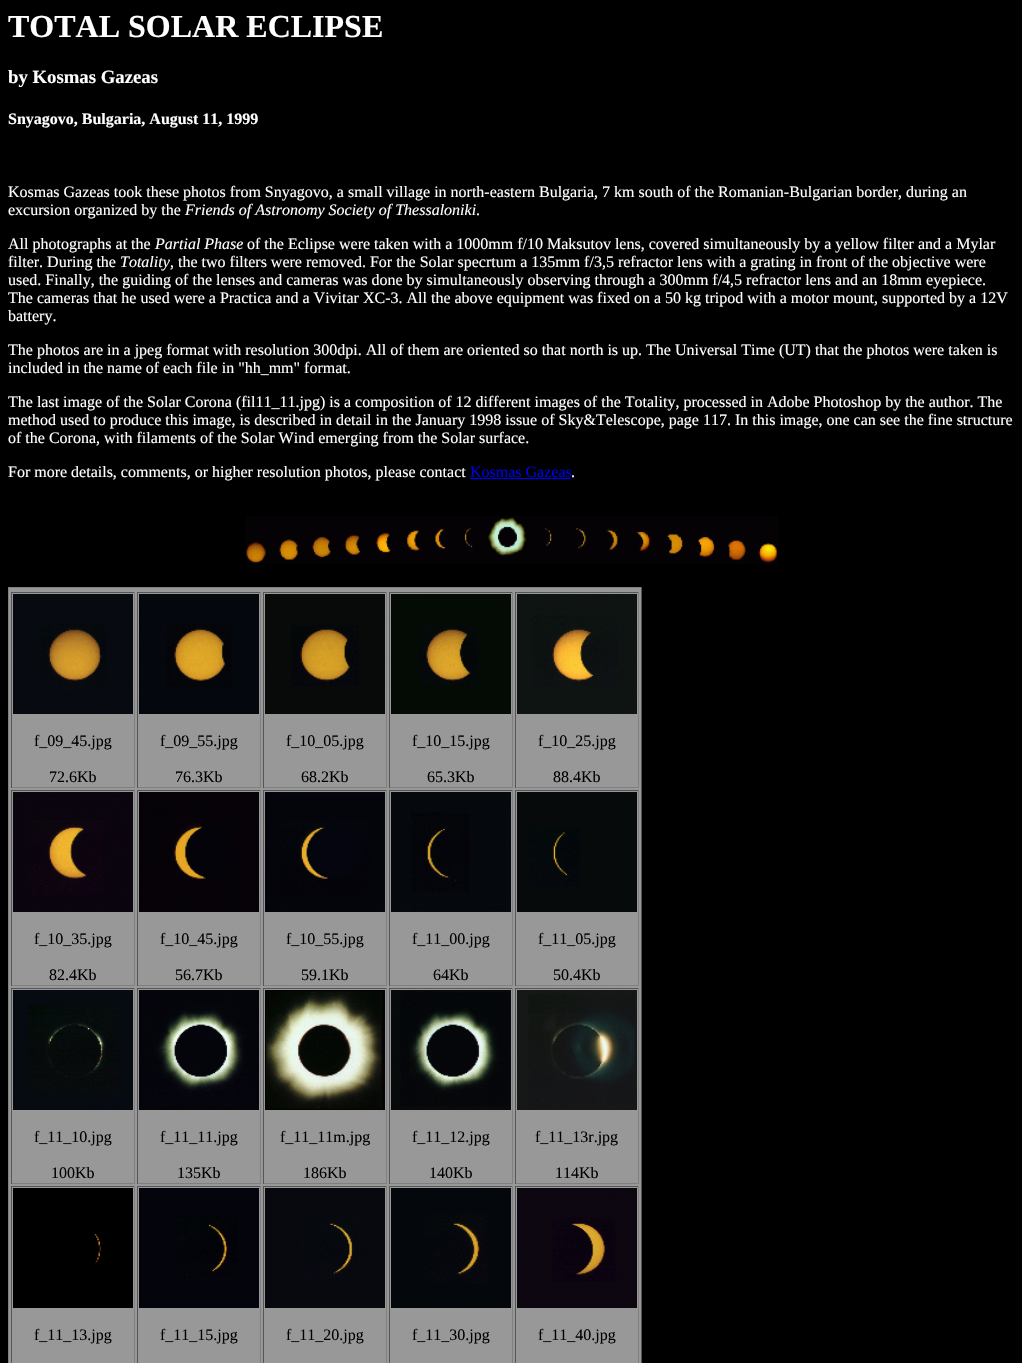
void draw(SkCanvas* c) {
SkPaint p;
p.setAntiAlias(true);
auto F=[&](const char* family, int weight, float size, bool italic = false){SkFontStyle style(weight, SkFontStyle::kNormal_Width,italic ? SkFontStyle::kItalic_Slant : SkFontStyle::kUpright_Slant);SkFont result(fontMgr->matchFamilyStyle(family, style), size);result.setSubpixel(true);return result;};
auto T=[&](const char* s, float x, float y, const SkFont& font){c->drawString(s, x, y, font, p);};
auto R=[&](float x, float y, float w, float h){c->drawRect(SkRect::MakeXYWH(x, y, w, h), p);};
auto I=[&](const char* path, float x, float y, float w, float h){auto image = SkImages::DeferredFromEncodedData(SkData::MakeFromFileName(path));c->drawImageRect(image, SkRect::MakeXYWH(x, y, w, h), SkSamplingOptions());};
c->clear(0xff000000);
auto f1 = F("Liberation Serif",700,32);
p.setColor(0xffffffff);
T("TOTAL SOLAR ECLIPSE",8,37,f1);
auto f2 = F("Liberation Serif",700,18.75);
T("by Kosmas Gazeas",8,83,f2);
auto f3 = F("Liberation Serif",700,16);
T("Snyagovo, Bulgaria, August 11, 1999",8,124,f3);
auto f4 = F("Liberation Serif",400,16);
T("Kosmas Gazeas took these photos from Snyagovo, a small village in north-eastern Bulgaria, 7 km south of the Romanian-Bulgarian border, during an",8,197,f4);
T("excursion organized by the",8,215,f4);
auto f5 = F("Liberation Serif",400,16,true);
T("Friends of Astronomy Society of Thessaloniki",185,215,f5);
T(".",476,215,f4);
T("All photographs at the",8,249,f4);
T("Partial Phase",155,249,f5);
T("of the Eclipse were taken with a 1000mm f/10 Maksutov lens, covered simultaneously by a yellow filter and a Mylar",247,249,f4);
T("filter. During the",8,267,f4);
T("Totality",120,267,f5);
T(", the two filters were removed. For the Solar specrtum a 135mm f/3,5 refractor lens with a grating in front of the objective were",170,267,f4);
T("used. Finally, the guiding of the lenses and cameras was done by simultaneously observing through a 300mm f/4,5 refractor lens and an 18mm eyepiece.",8,285,f4);
T("The cameras that he used were a Practica and a Vivitar XC-3. All the above equipment was fixed on a 50 kg tripod with a motor mount, supported by a 12V",8,303,f4);
T("battery.",8,321,f4);
T("The photos are in a jpeg format with resolution 300dpi. All of them are oriented so that north is up. The Universal Time (UT) that the photos were taken is",8,355,f4);
T("included in the name of each file in \"hh_mm\" format.",8,373,f4);
T("The last image of the Solar Corona (fil11_11.jpg) is a composition of 12 different images of the Totality, processed in Adobe Photoshop by the author. The",8,407,f4);
T("method used to produce this image, is described in detail in the January 1998 issue of Sky&Telescope, page 117. In this image, one can see the fine structure",8,425,f4);
T("of the Corona, with filaments of the Solar Wind emerging from the Solar surface.",8,443,f4);
T("For more details, comments, or higher resolution photos, please contact",8,477,f4);
p.setColor(0xff0000ee);
T("Kosmas Gazeas",470,477,f4);
p.setColor(0xffffffff);
T(".",571,477,f4);
p.setColor(0xff0000ee);
R(470,478,101,1);
I("1.png",246,516,532,48);
p.setColor(0xff989898);
R(9,588,632,775);
p.setColor(0xff808080);
R(8,587,634,1);
p.setColor(0xff555555);
R(641,587,1,776);
p.setColor(0xff808080);
R(8,587,1,776);
p.setColor(0xff555555);
R(11,592,124,1);
p.setColor(0xff808080);
R(134,592,1,196);
R(11,787,124,1);
p.setColor(0xff555555);
R(11,592,1,196);
I("2.png",13,594,120,120);
p.setColor(0xff000000);
T("f_09_45.jpg",34,746,f4);
T("72.6Kb",49,782,f4);
p.setColor(0xff555555);
R(137,592,124,1);
p.setColor(0xff808080);
R(260,592,1,196);
R(137,787,124,1);
p.setColor(0xff555555);
R(137,592,1,196);
I("3.png",139,594,120,120);
p.setColor(0xff000000);
T("f_09_55.jpg",160,746,f4);
T("76.3Kb",175,782,f4);
p.setColor(0xff555555);
R(263,592,124,1);
p.setColor(0xff808080);
R(386,592,1,196);
R(263,787,124,1);
p.setColor(0xff555555);
R(263,592,1,196);
I("4.png",265,594,120,120);
p.setColor(0xff000000);
T("f_10_05.jpg",286,746,f4);
T("68.2Kb",301,782,f4);
p.setColor(0xff555555);
R(389,592,124,1);
p.setColor(0xff808080);
R(512,592,1,196);
R(389,787,124,1);
p.setColor(0xff555555);
R(389,592,1,196);
I("5.png",391,594,120,120);
p.setColor(0xff000000);
T("f_10_15.jpg",412,746,f4);
T("65.3Kb",427,782,f4);
p.setColor(0xff555555);
R(515,592,124,1);
p.setColor(0xff808080);
R(638,592,1,196);
R(515,787,124,1);
p.setColor(0xff555555);
R(515,592,1,196);
I("6.png",517,594,120,120);
p.setColor(0xff000000);
T("f_10_25.jpg",538,746,f4);
T("88.4Kb",553,782,f4);
p.setColor(0xff555555);
R(11,790,124,1);
p.setColor(0xff808080);
R(134,790,1,196);
R(11,985,124,1);
p.setColor(0xff555555);
R(11,790,1,196);
I("7.png",13,792,120,120);
p.setColor(0xff000000);
T("f_10_35.jpg",34,944,f4);
T("82.4Kb",49,980,f4);
p.setColor(0xff555555);
R(137,790,124,1);
p.setColor(0xff808080);
R(260,790,1,196);
R(137,985,124,1);
p.setColor(0xff555555);
R(137,790,1,196);
I("8.png",139,792,120,120);
p.setColor(0xff000000);
T("f_10_45.jpg",160,944,f4);
T("56.7Kb",175,980,f4);
p.setColor(0xff555555);
R(263,790,124,1);
p.setColor(0xff808080);
R(386,790,1,196);
R(263,985,124,1);
p.setColor(0xff555555);
R(263,790,1,196);
I("9.png",265,792,120,120);
p.setColor(0xff000000);
T("f_10_55.jpg",286,944,f4);
T("59.1Kb",301,980,f4);
p.setColor(0xff555555);
R(389,790,124,1);
p.setColor(0xff808080);
R(512,790,1,196);
R(389,985,124,1);
p.setColor(0xff555555);
R(389,790,1,196);
I("10.png",391,792,120,120);
p.setColor(0xff000000);
T("f_11_00.jpg",412,944,f4);
T("64Kb",433,980,f4);
p.setColor(0xff555555);
R(515,790,124,1);
p.setColor(0xff808080);
R(638,790,1,196);
R(515,985,124,1);
p.setColor(0xff555555);
R(515,790,1,196);
I("11.png",517,792,120,120);
p.setColor(0xff000000);
T("f_11_05.jpg",538,944,f4);
T("50.4Kb",553,980,f4);
p.setColor(0xff555555);
R(11,988,124,1);
p.setColor(0xff808080);
R(134,988,1,196);
R(11,1183,124,1);
p.setColor(0xff555555);
R(11,988,1,196);
I("12.png",13,990,120,120);
p.setColor(0xff000000);
T("f_11_10.jpg",34,1142,f4);
T("100Kb",51,1178,f4);
p.setColor(0xff555555);
R(137,988,124,1);
p.setColor(0xff808080);
R(260,988,1,196);
R(137,1183,124,1);
p.setColor(0xff555555);
R(137,988,1,196);
I("13.png",139,990,120,120);
p.setColor(0xff000000);
T("f_11_11.jpg",160,1142,f4);
T("135Kb",177,1178,f4);
p.setColor(0xff555555);
R(263,988,124,1);
p.setColor(0xff808080);
R(386,988,1,196);
R(263,1183,124,1);
p.setColor(0xff555555);
R(263,988,1,196);
I("14.png",265,990,120,120);
p.setColor(0xff000000);
T("f_11_11m.jpg",280,1142,f4);
T("186Kb",303,1178,f4);
p.setColor(0xff555555);
R(389,988,124,1);
p.setColor(0xff808080);
R(512,988,1,196);
R(389,1183,124,1);
p.setColor(0xff555555);
R(389,988,1,196);
I("15.png",391,990,120,120);
p.setColor(0xff000000);
T("f_11_12.jpg",412,1142,f4);
T("140Kb",429,1178,f4);
p.setColor(0xff555555);
R(515,988,124,1);
p.setColor(0xff808080);
R(638,988,1,196);
R(515,1183,124,1);
p.setColor(0xff555555);
R(515,988,1,196);
I("16.png",517,990,120,120);
p.setColor(0xff000000);
T("f_11_13r.jpg",535,1142,f4);
T("114Kb",555,1178,f4);
p.setColor(0xff555555);
R(11,1186,124,1);
p.setColor(0xff808080);
R(134,1186,1,177);
p.setColor(0xff555555);
R(11,1186,1,177);
I("17.png",13,1188,120,120);
p.setColor(0xff000000);
T("f_11_13.jpg",34,1340,f4);
p.setColor(0xff555555);
R(137,1186,124,1);
p.setColor(0xff808080);
R(260,1186,1,177);
p.setColor(0xff555555);
R(137,1186,1,177);
I("18.png",139,1188,120,120);
p.setColor(0xff000000);
T("f_11_15.jpg",160,1340,f4);
p.setColor(0xff555555);
R(263,1186,124,1);
p.setColor(0xff808080);
R(386,1186,1,177);
p.setColor(0xff555555);
R(263,1186,1,177);
I("19.png",265,1188,120,120);
p.setColor(0xff000000);
T("f_11_20.jpg",286,1340,f4);
p.setColor(0xff555555);
R(389,1186,124,1);
p.setColor(0xff808080);
R(512,1186,1,177);
p.setColor(0xff555555);
R(389,1186,1,177);
I("20.png",391,1188,120,120);
p.setColor(0xff000000);
T("f_11_30.jpg",412,1340,f4);
p.setColor(0xff555555);
R(515,1186,124,1);
p.setColor(0xff808080);
R(638,1186,1,177);
p.setColor(0xff555555);
R(515,1186,1,177);
I("21.png",517,1188,120,120);
p.setColor(0xff000000);
T("f_11_40.jpg",538,1340,f4);
}
